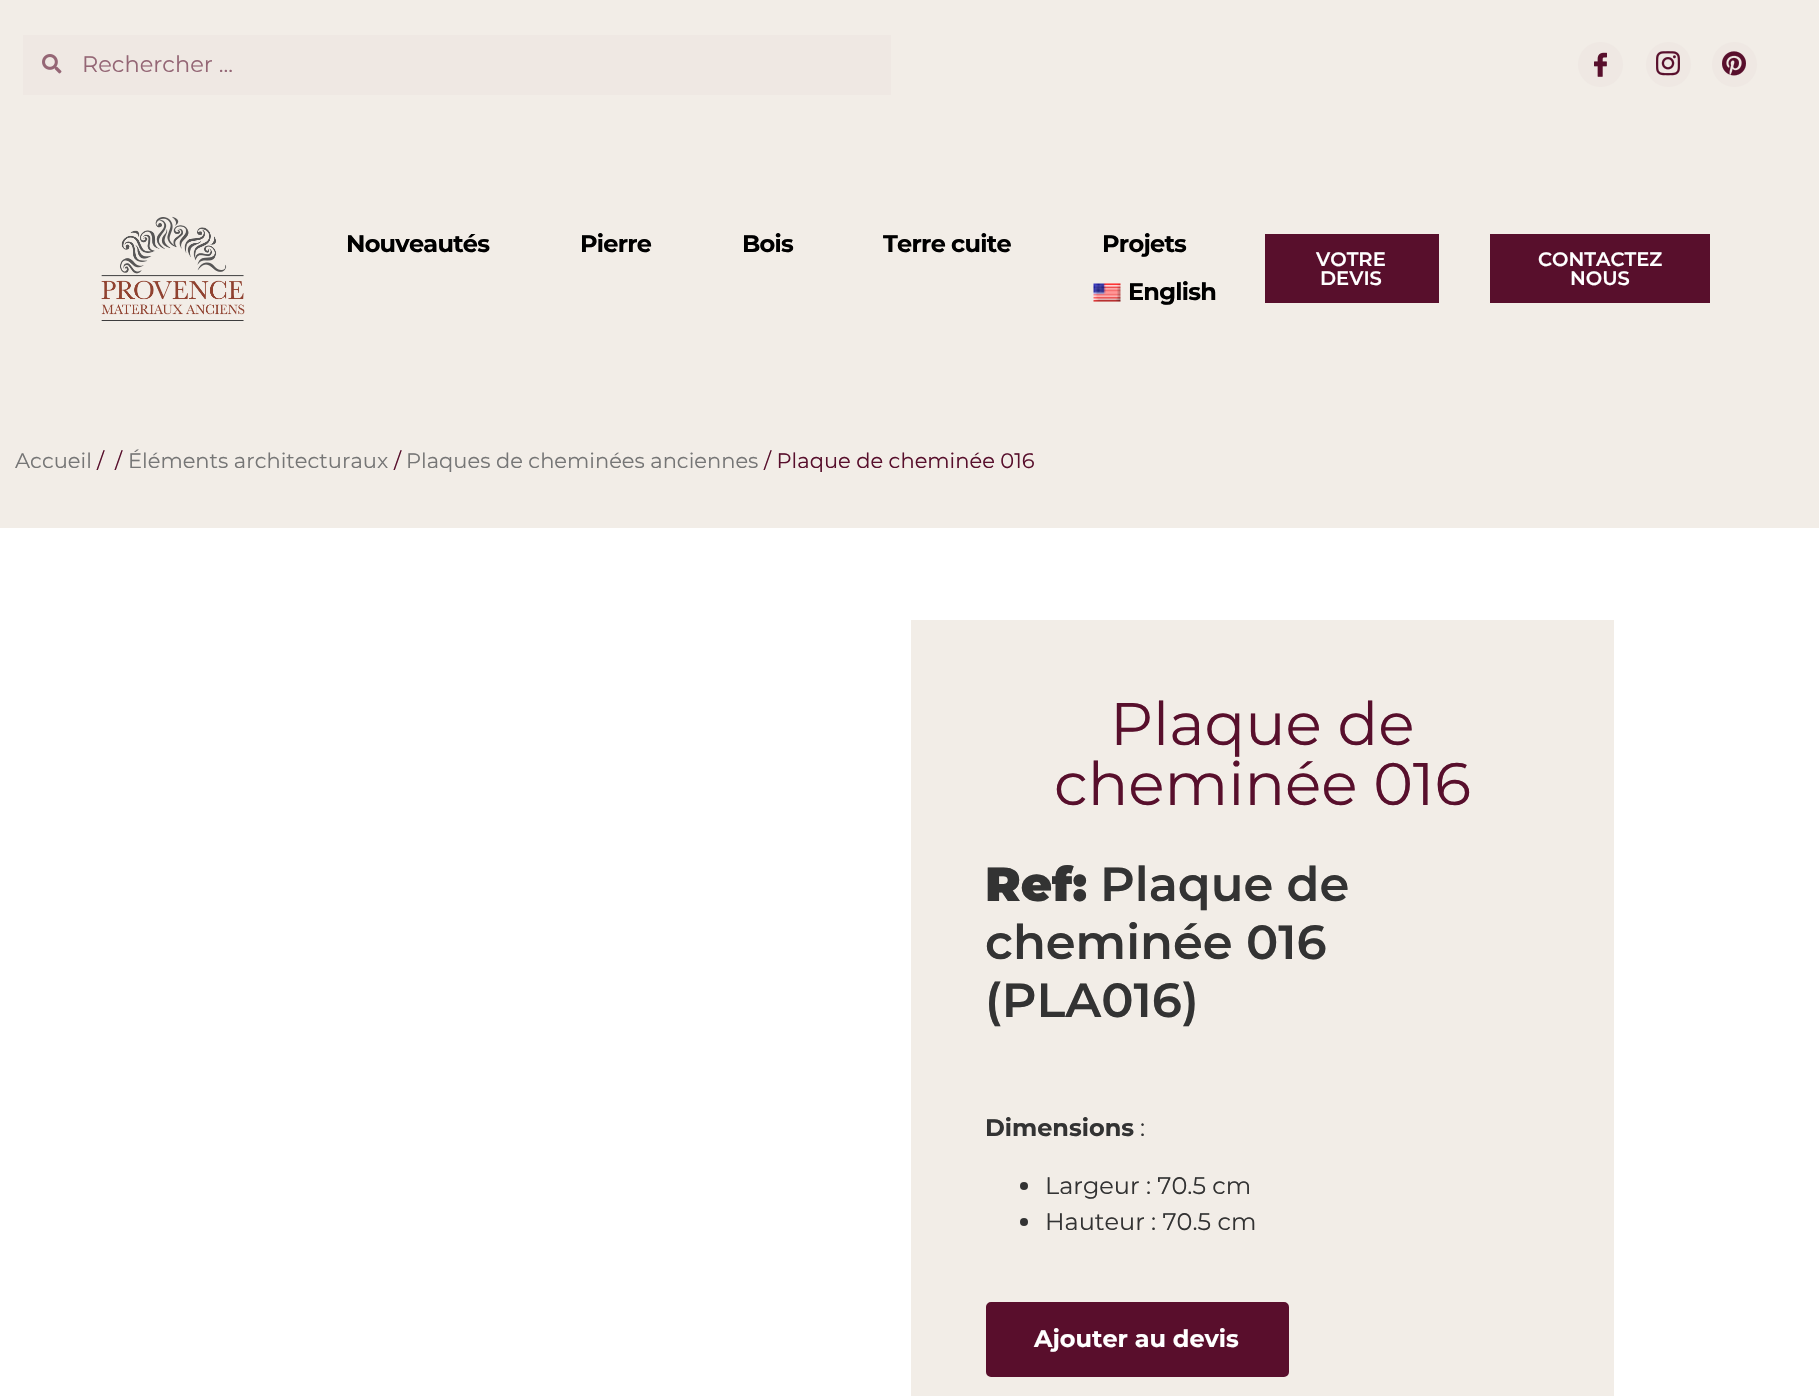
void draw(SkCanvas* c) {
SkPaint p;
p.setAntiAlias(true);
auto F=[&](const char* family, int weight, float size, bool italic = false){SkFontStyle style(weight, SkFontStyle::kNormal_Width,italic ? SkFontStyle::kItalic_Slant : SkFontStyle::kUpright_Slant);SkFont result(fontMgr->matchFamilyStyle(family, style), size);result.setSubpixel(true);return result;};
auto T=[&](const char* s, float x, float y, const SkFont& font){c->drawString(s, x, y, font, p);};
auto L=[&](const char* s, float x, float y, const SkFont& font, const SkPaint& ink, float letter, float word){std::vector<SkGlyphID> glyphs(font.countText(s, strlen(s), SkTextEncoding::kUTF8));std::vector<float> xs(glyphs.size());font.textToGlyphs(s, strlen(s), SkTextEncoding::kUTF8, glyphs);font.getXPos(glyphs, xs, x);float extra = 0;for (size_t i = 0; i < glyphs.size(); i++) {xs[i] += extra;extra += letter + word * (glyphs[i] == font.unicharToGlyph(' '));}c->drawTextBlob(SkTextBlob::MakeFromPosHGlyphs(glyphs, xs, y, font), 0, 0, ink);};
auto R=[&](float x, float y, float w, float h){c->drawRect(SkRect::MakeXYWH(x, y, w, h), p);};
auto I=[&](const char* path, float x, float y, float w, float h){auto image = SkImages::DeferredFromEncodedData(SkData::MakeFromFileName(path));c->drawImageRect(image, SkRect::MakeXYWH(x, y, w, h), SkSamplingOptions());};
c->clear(0xfff2ede7);
p.setColor(0xffefe8e3);
R(23,35,868,60);
I("1.png",42,54,20,20);
auto f1 = F("Montserrat",400,22.5);
p.setColor(0xff946675);
T("Rechercher ...",82,72,f1);
p.setColor(0xffefe8e3);
c->drawCircle(1600.5,64.5,22.5,p);
I("2.png",1594,52,13,25);
c->drawCircle(1668.5,64.5,22.5,p);
I("3.png",1656,51,24,25);
c->drawCircle(1734.5,64.5,22.5,p);
I("4.png",1722,51,24,25);
I("5.png",101,216,144,105);
auto f2 = F("Montserrat",700,24);
p.setColor(0xff000000);
L("Nouveautés",346,252,f2,p,-.75,0);
L("Pierre",580,252,f2,p,-.75,0);
L("Bois",742,252,f2,p,-.75,0);
L("Terre cuite",883,252,f2,p,-.75,0);
L("Projets",1102,252,f2,p,-.75,0);
I("6.png",1093,283,28,19);
L("English",1128,300,f2,p,-.75,0);
p.setColor(0xff580f2c);
R(1265,234,174,69);
auto f3 = F("Montserrat",600,19.5);
p.setColor(0xffffffff);
T("VOTRE",1316,266,f3);
T("DEVIS",1320,285,f3);
p.setColor(0xff580f2c);
R(1490,234,220,69);
p.setColor(0xffffffff);
T("CONTACTEZ",1538,266,f3);
T("NOUS",1570,285,f3);
auto f4 = F("Montserrat",400,21);
p.setColor(0xff767676);
T("Accueil",15,468,f4);
p.setColor(0xff580f2c);
T("/",97,468,f4);
T("/",115,468,f4);
p.setColor(0xff767676);
T("Éléments architecturaux",128,468,f4);
p.setColor(0xff580f2c);
T("/",394,468,f4);
p.setColor(0xff767676);
T("Plaques de cheminées anciennes",406,468,f4);
p.setColor(0xff580f2c);
T("/ Plaque de cheminée 016",764,468,f4);
p.setColor(0xffffffff);
R(0,528,1819,868);
p.setColor(0xfff2ede7);
R(911,620,703,776);
auto f5 = F("Montserrat",400,60);
p.setColor(0xff580f2c);
T("Plaque de",1110,745,f5);
T("cheminée 016",1054,805,f5);
auto f6 = F("Montserrat",900,48);
p.setColor(0xff333333);
T("Ref:",985,901,f6);
auto f7 = F("Montserrat",600,48);
T("Plaque de",1100,901,f7);
T("cheminée 016",985,959,f7);
T("(PLA016)",985,1017,f7);
T("Dimensions",985,1136,f2);
auto f8 = F("Montserrat",400,24);
T(":",1140,1136,f8);
c->drawCircle(1024,1186,4,p);
T("Largeur : 70.5 cm",1045,1194,f8);
c->drawCircle(1024,1222,4,p);
T("Hauteur : 70.5 cm",1045,1230,f8);
p.setColor(0xff590e2c);
c->drawRoundRect(SkRect::MakeXYWH(987,1303,301,73),4,4,p);
p.setStroke(true);
p.setStrokeWidth(2);
c->drawRoundRect(SkRect::MakeXYWH(987,1303,301,73),4,4,p);
p.setStroke(false);
p.setColor(0xffffffff);
T("Ajouter au devis",1034,1347,f2);
}
